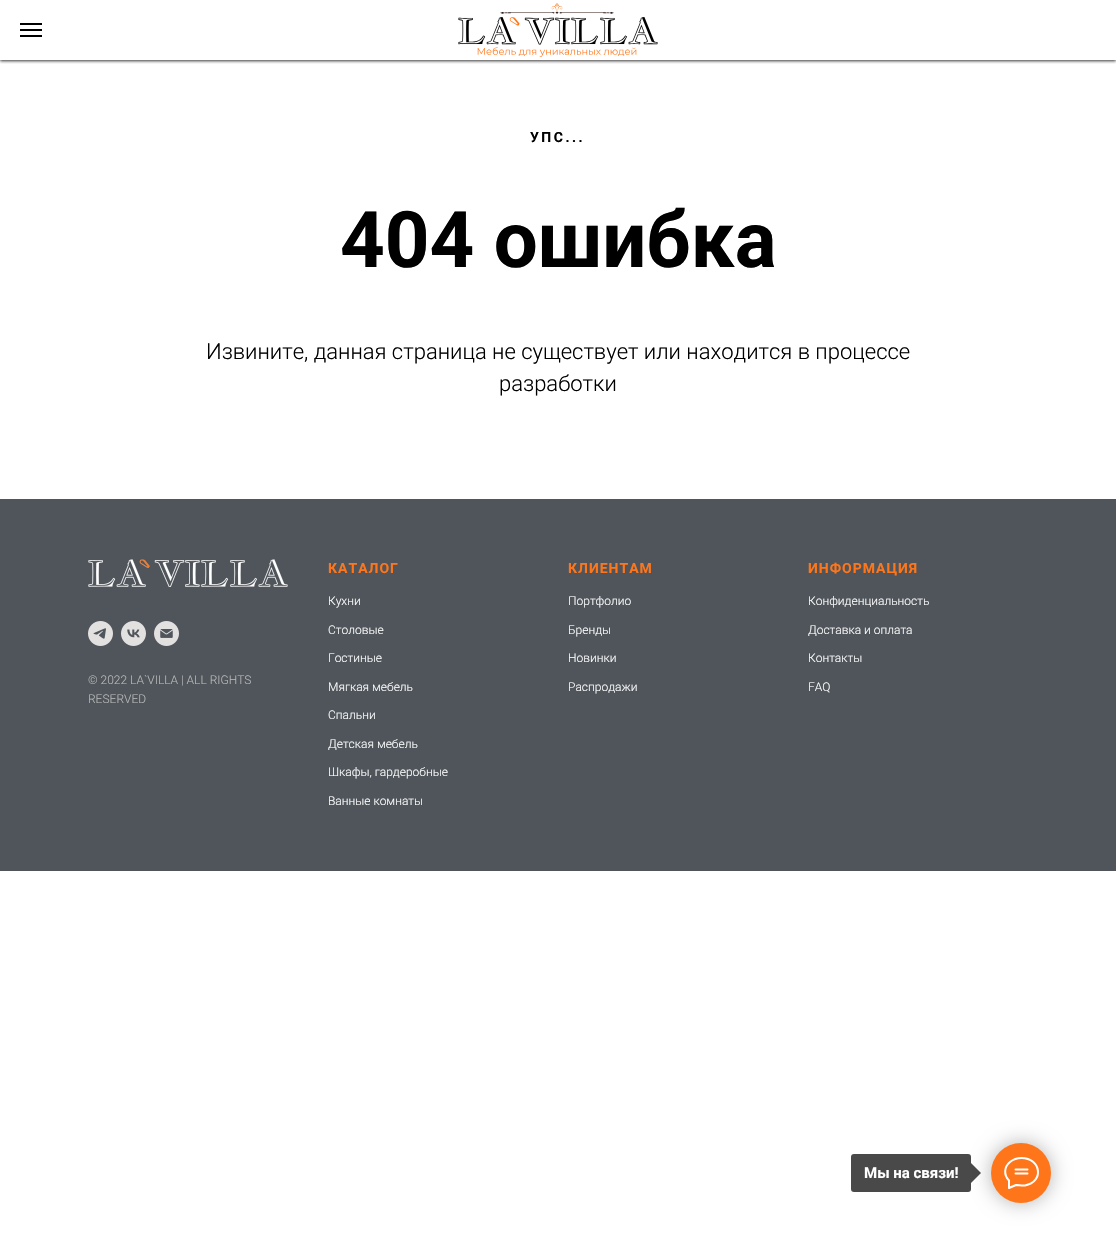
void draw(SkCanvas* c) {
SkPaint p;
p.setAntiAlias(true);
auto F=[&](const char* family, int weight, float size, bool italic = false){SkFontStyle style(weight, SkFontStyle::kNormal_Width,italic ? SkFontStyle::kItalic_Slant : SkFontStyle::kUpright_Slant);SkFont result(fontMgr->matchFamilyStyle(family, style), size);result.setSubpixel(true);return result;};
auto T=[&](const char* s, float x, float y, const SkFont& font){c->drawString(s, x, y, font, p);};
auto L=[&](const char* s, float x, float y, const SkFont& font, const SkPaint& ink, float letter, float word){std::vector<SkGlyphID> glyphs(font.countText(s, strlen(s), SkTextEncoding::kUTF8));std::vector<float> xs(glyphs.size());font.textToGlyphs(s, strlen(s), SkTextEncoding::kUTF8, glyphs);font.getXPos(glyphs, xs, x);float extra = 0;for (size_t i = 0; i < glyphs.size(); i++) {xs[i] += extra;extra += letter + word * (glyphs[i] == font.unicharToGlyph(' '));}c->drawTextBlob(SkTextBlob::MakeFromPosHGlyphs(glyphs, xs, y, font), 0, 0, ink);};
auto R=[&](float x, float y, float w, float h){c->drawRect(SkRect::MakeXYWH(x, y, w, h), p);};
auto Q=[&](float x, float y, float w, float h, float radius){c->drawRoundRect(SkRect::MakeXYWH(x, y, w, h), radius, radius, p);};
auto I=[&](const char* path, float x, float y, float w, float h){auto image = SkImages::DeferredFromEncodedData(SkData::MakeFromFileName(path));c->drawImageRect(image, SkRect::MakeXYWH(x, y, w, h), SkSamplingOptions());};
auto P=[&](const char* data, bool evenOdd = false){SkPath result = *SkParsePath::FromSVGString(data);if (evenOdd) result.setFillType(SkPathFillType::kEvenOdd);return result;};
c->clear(0xffffffff);
c->save();
c->clipRect(SkRect::MakeXYWH(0,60,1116,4));
p.setColor(0xcc000000);
p.setMaskFilter(SkMaskFilter::MakeBlur(kNormal_SkBlurStyle, 1.5));
c->drawRect(SkRect::MakeXYWH(0,1,1116,60),p);
p.setMaskFilter(nullptr);
c->restore();
p.setColor(0xff000000);
R(20,23,22,2);
R(20,29,22,2);
R(20,35,22,2);
I("1.png",458,3,200,54);
auto f1 = F("Roboto",700,14);
L("УПС...",530,142,f1,p,2.5,0);
auto f2 = F("Roboto",700,78);
T("404 ошибка",340,267,f2);
auto f3 = F("Roboto",300,22);
T("Извините, данная страница не существует или находится в процессе",206,359,f3);
T("разработки",499,391,f3);
p.setColor(0xff4f555b);
R(0,499,1116,372);
I("2.png",88,559,200,28);
I("3.png",88,621,25,25);
I("4.png",121,621,25,25);
I("5.png",154,621,25,25);
auto f4 = F("Roboto",300,12);
p.setColor(0xffb8b8b8);
T("© 2022 LA`VILLA | ALL RIGHTS",88,684,f4);
T("RESERVED",88,703,f4);
p.setColor(0xffff761a);
L("КАТАЛОГ",328,573,f1,p,1,0);
p.setColor(0xffffffff);
T("Кухни",328,605,f4);
T("Столовые",328,634,f4);
T("Гостиные",328,662,f4);
T("Мягкая мебель",328,691,f4);
T("Спальни",328,719,f4);
T("Детская мебель",328,748,f4);
T("Шкафы, гардеробные",328,776,f4);
T("Ванные комнаты",328,805,f4);
p.setColor(0xffff761a);
L("КЛИЕНТАМ",568,573,f1,p,1,0);
p.setColor(0xffffffff);
T("Портфолио",568,605,f4);
T("Бренды",568,634,f4);
T("Новинки",568,662,f4);
T("Распродажи",568,691,f4);
p.setColor(0xffff761a);
L("ИНФОРМАЦИЯ",808,573,f1,p,1,0);
p.setColor(0xffffffff);
T("Конфиденциальность",808,605,f4);
T("Доставка и оплата",808,634,f4);
T("Контакты",808,662,f4);
T("FAQ",808,691,f4);
p.setColor(0xff494949);
Q(851,1154,120,38,3);
auto f5 = F("Roboto",700,15);
p.setColor(0xffffffff);
T("Мы на связи!",864,1178,f5);
p.setColor(0xff494949);
c->drawPath(P("M971 1183v-20l10 10z"),p);
p.setColor(0x4d000000);
p.setMaskFilter(SkMaskFilter::MakeBlur(kNormal_SkBlurStyle, 10));
c->drawRoundRect(SkRect::MakeXYWH(991,1143,60,60),30,30,p);
p.setMaskFilter(nullptr);
p.setColor(0xffff761a);
c->drawCircle(1021,1173,30,p);
p.setStroke(true);
p.setStrokeWidth(2);
p.setStrokeCap(SkPaint::kRound_Cap);
p.setStrokeJoin(SkPaint::kRound_Join);
p.setColor(0xffffffff);
c->drawPath(P("M1015.5 1169.5h12m-12 4h12m-18.5 7c-5.5-5.5-5-13.5 1-18.5c3-2.5 7.5-4 11.5-4c19.5 0 23 24 3.5 27.5c-4 .5-5.5-.5-9-.5l-7 3v-7z"),p);
}
